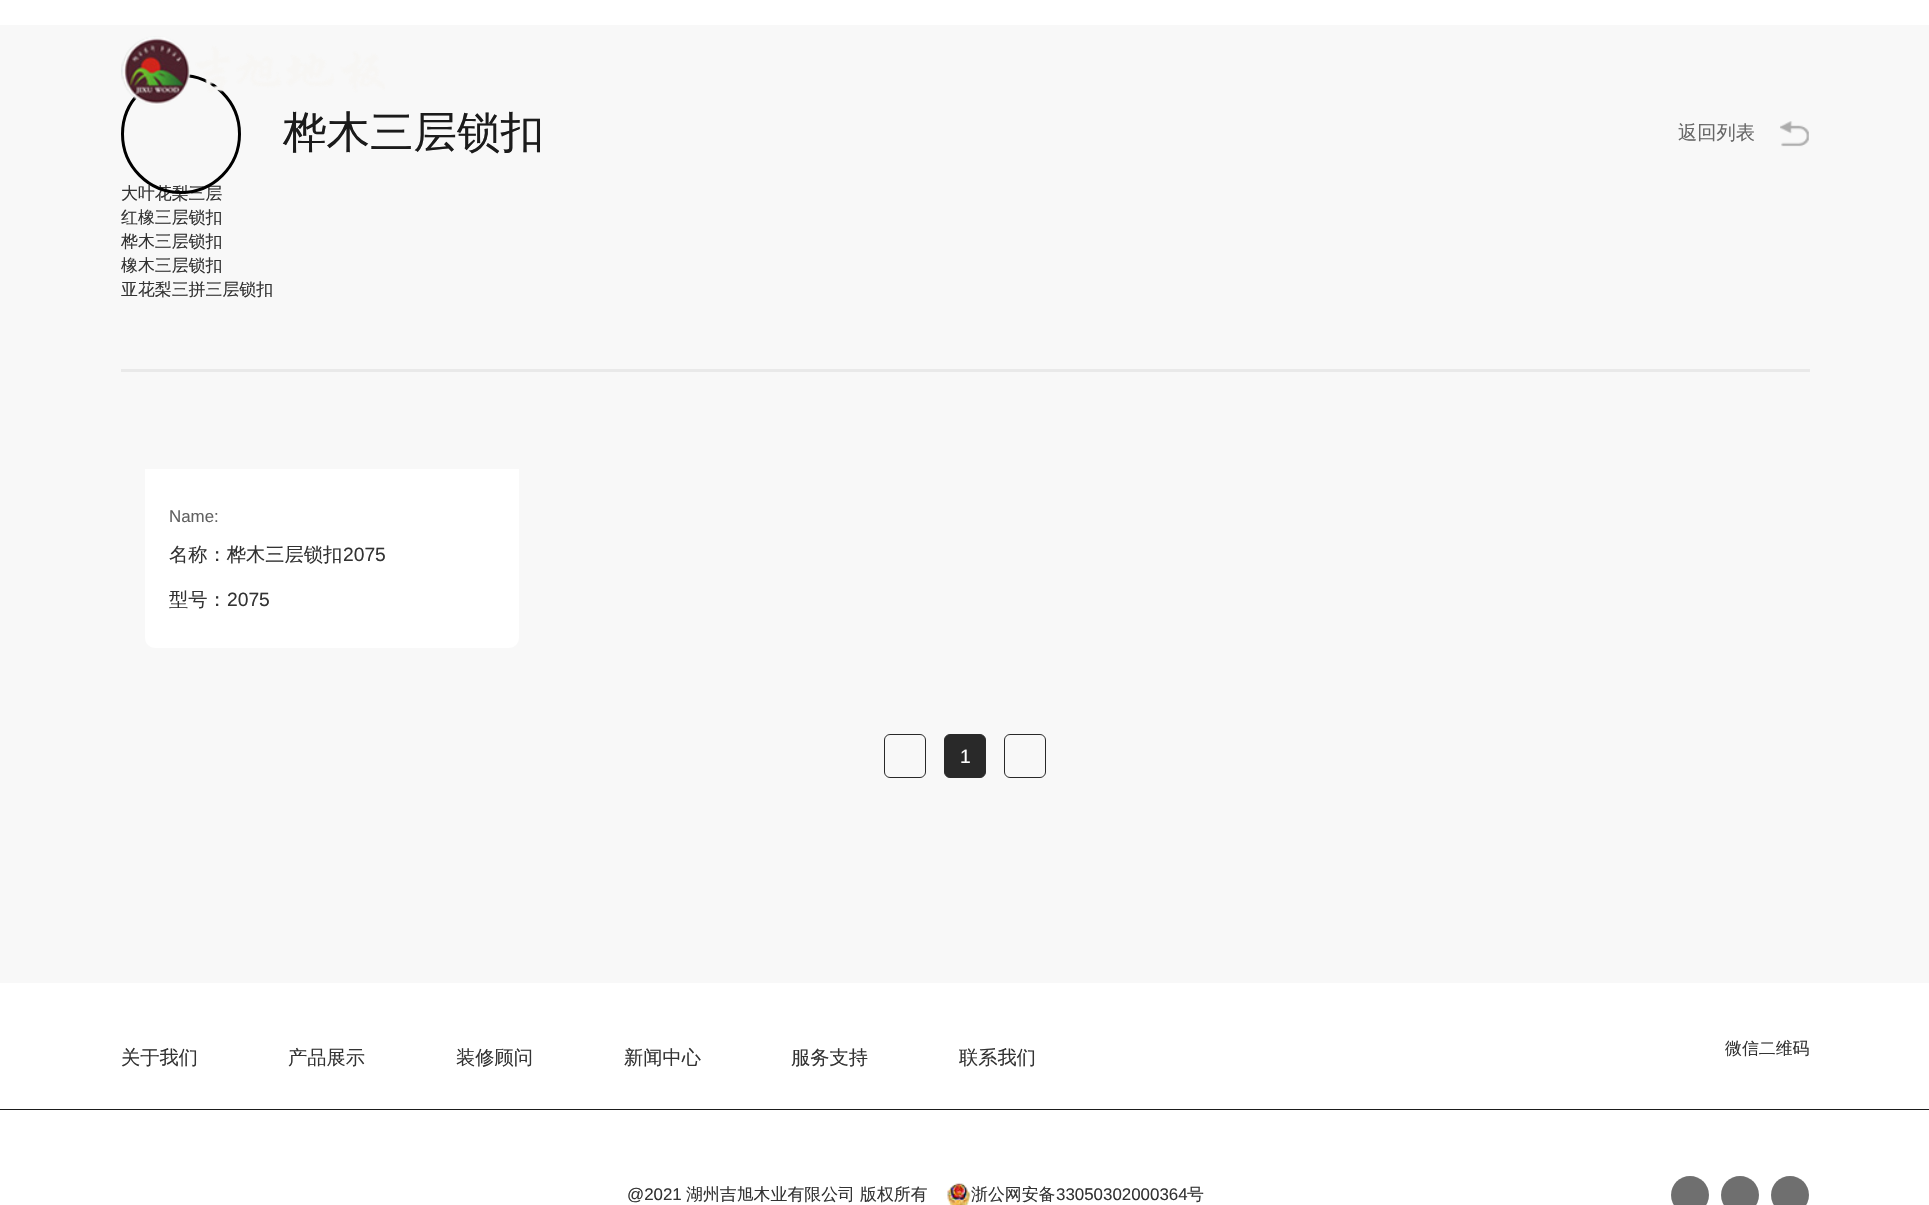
void draw(SkCanvas* c) {
SkPaint p;
p.setAntiAlias(true);
auto F=[&](const char* family, int weight, float size, bool italic = false){SkFontStyle style(weight, SkFontStyle::kNormal_Width,italic ? SkFontStyle::kItalic_Slant : SkFontStyle::kUpright_Slant);SkFont result(fontMgr->matchFamilyStyle(family, style), size);result.setSubpixel(true);return result;};
auto T=[&](const char* s, float x, float y, const SkFont& font){c->drawString(s, x, y, font, p);};
auto R=[&](float x, float y, float w, float h){c->drawRect(SkRect::MakeXYWH(x, y, w, h), p);};
auto I=[&](const char* path, float x, float y, float w, float h){auto image = SkImages::DeferredFromEncodedData(SkData::MakeFromFileName(path));c->drawImageRect(image, SkRect::MakeXYWH(x, y, w, h), SkSamplingOptions());};
auto P=[&](const char* data, bool evenOdd = false){SkPath result = *SkParsePath::FromSVGString(data);if (evenOdd) result.setFillType(SkPathFillType::kEvenOdd);return result;};
c->clear(0xffffffff);
p.setColor(0xfff8f8f8);
R(0,25,1929,958);
auto f1 = F("WenQuanYi Zen Hei",500,16.9);
p.setColor(0xff333333);
T("大叶花梨三层",121,199,f1);
p.setStroke(true);
p.setStrokeWidth(3);
p.setColor(0xff000000);
c->drawCircle(181,134,58.5,p);
I("1.png",121,36,264,69);
auto f2 = F("WenQuanYi Zen Hei",500,43.5);
p.setStroke(false);
p.setColor(0xff1b1b1b);
T("桦木三层锁扣",283,147,f2);
I("2.png",1780,121,29,26);
auto f3 = F("WenQuanYi Zen Hei",500,19.25);
p.setColor(0xff676767);
T("返回列表",1678,139,f3);
p.setColor(0xff333333);
T("红橡三层锁扣",121,223,f1);
T("桦木三层锁扣",121,247,f1);
T("橡木三层锁扣",121,271,f1);
T("亚花梨三拼三层锁扣",121,295,f1);
p.setColor(0xffe9e9e9);
R(121,369,1689,3);
p.setColor(0xffffffff);
c->drawPath(P("M145 469h374v169c0 5.5-4.5 10-10 10h-354c-5.5 0-10-4.5-10-10z"),p);
auto f4 = F("Liberation Sans",400,16.9);
p.setColor(0xff616161);
T("Name:",169,522,f4);
p.setColor(0xff333333);
T("名称：桦木三层锁扣",169,561,f3);
auto f5 = F("Liberation Sans",400,19.25);
T("2075",343,561,f5);
T("型号：",169,606,f3);
T("2075",227,606,f5);
p.setStroke(true);
p.setStrokeWidth(1);
p.setColor(0xff292929);
c->drawRoundRect(SkRect::MakeXYWH(884.5,734.5,41,43),5.5,5.5,p);
p.setStroke(false);
c->drawRoundRect(SkRect::MakeXYWH(944.5,734.5,41,43),5.5,5.5,p);
p.setStroke(true);
c->drawRoundRect(SkRect::MakeXYWH(944.5,734.5,41,43),5.5,5.5,p);
p.setStroke(false);
p.setColor(0xffffffff);
T("1",960,763,f5);
p.setStroke(true);
p.setColor(0xff292929);
c->drawRoundRect(SkRect::MakeXYWH(1004.5,734.5,41,43),5.5,5.5,p);
p.setStroke(false);
p.setColor(0xff333333);
T("关于我们",121,1064,f3);
T("产品展示",288,1064,f3);
T("装修顾问",456,1064,f3);
T("新闻中心",624,1064,f3);
T("服务支持",791,1064,f3);
T("联系我们",959,1064,f3);
T("微信二维码",1725,1054,f1);
p.setColor(0xff1b1b1b);
R(0,1109,1929,1);
p.setColor(0xff333333);
T("@2021",627,1200,f4);
T("湖州吉旭木业有限公司 版权所有",686,1200,f1);
I("3.png",947,1182,24,23);
T("浙公网安备",971,1200,f1);
T("33050302000364",1056,1200,f4);
T("号",1187,1200,f1);
p.setColor(0xff6f6f6f);
c->drawCircle(1690,1195,19,p);
c->drawCircle(1740,1195,19,p);
c->drawCircle(1790,1195,19,p);
}
